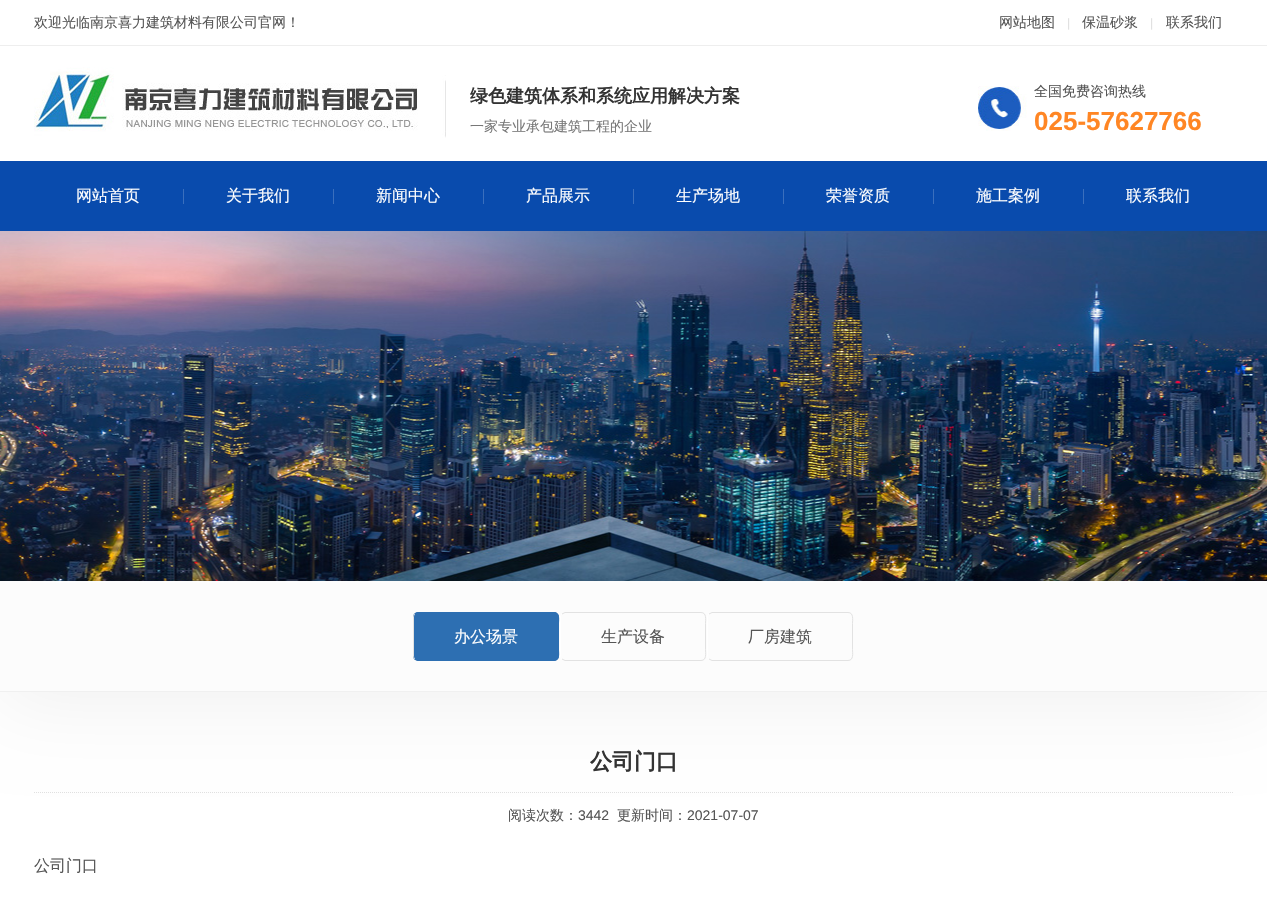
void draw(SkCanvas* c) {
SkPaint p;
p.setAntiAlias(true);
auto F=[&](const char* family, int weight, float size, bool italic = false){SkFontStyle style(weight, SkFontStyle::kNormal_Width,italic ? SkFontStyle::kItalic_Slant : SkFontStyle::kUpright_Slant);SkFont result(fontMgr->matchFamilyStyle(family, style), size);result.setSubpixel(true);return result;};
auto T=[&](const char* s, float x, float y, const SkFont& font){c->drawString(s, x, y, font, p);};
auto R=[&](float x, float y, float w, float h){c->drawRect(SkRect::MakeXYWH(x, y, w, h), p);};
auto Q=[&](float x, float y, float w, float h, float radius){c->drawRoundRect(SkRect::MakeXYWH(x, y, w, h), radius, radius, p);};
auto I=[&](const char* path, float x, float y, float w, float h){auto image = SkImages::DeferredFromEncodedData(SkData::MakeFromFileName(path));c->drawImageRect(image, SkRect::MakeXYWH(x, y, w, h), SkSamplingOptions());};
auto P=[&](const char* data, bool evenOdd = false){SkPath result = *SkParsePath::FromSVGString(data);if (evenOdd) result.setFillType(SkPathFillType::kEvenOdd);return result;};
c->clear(0xffffffff);
p.setColor(0xffeeeeee);
R(0,45,1267,1);
auto f1 = F("WenQuanYi Zen Hei",500,14);
p.setColor(0xff555555);
T("欢迎光临南京喜力建筑材料有限公司官网！",34,27,f1);
T("网站地图",999,27,f1);
auto f2 = F("Liberation Sans",400,12);
p.setColor(0xffe0e0e0);
T("|",1067,27,f2);
p.setColor(0xff555555);
T("保温砂浆",1082,27,f1);
p.setColor(0xffe0e0e0);
T("|",1150,27,f2);
p.setColor(0xff555555);
T("联系我们",1166,27,f1);
I("1.png",34,67,412,71);
auto f3 = F("WenQuanYi Zen Hei",700,18);
p.setColor(0xff333333);
T("绿色建筑体系和系统应用解决方案",470,102,f3);
p.setColor(0xff777777);
T("一家专业承包建筑工程的企业",470,131,f1);
I("2.png",978,86,49,45);
p.setColor(0xff555555);
T("全国免费咨询热线",1034,96,f1);
auto f4 = F("Liberation Sans",700,26);
p.setColor(0xffff8624);
T("025-57627766",1034,130,f4);
p.setColor(0xff094bad);
R(0,161,1267,70);
p.setColor(0xff3a6fbd);
R(183,189,1,15);
auto f5 = F("WenQuanYi Zen Hei",500,16);
p.setColor(0xffffffff);
T("网站首页",76,201,f5);
p.setColor(0xff3a6fbd);
R(333,189,1,15);
p.setColor(0xffffffff);
T("关于我们",226,201,f5);
p.setColor(0xff3a6fbd);
R(483,189,1,15);
p.setColor(0xffffffff);
T("新闻中心",376,201,f5);
p.setColor(0xff3a6fbd);
R(633,189,1,15);
p.setColor(0xffffffff);
T("产品展示",526,201,f5);
p.setColor(0xff3a6fbd);
R(783,189,1,15);
p.setColor(0xffffffff);
T("生产场地",676,201,f5);
p.setColor(0xff3a6fbd);
R(933,189,1,15);
p.setColor(0xffffffff);
T("荣誉资质",826,201,f5);
p.setColor(0xff3a6fbd);
R(1083,189,1,15);
p.setColor(0xffffffff);
T("施工案例",976,201,f5);
T("联系我们",1126,201,f5);
p.setColor(0xfff0f0f0);
p.setMaskFilter(SkMaskFilter::MakeBlur(kNormal_SkBlurStyle, 40));
c->drawRect(SkRect::MakeXYWH(0,591,1267,111),p);
p.setMaskFilter(nullptr);
I("3.png",0,231,1267,350);
p.setColor(0xfffcfcfc);
R(0,581,1267,110);
p.setColor(0xfff0f0f0);
R(0,691,1267,1);
p.setColor(0xff2d6fb2);
Q(413,612,146,49,5);
p.setStroke(true);
p.setStrokeWidth(1);
c->drawPath(P("M415 614l3-1.5h136c6 0 4.5 7.5 4.5 11v26c0 3.5 1.5 11-4.5 11h-136l-3-1.5"),p);
p.setStroke(false);
p.setColor(0xffffffff);
T("办公场景",454,642,f5);
p.setStroke(true);
p.setColor(0xffe2e2e2);
c->drawPath(P("M415 659c-1-.5-1.5-2-1.5-3v-39c0-1 .5-2.5 1.5-3"),p);
c->drawPath(P("M562 614l3-1.5h136c6 0 4.5 7.5 4.5 11v26c0 3.5 1.5 11-4.5 11h-136l-3-1.5"),p);
p.setStroke(false);
p.setColor(0xff555555);
T("生产设备",601,642,f5);
p.setStroke(true);
p.setColor(0xffffffff);
c->drawPath(P("M562 659c-1-.5-1.5-2-1.5-3v-39c0-1 .5-2.5 1.5-3"),p);
p.setColor(0xffe2e2e2);
c->drawPath(P("M709 614l3-1.5h136c6 0 4.5 7.5 4.5 11v26c0 3.5 1.5 11-4.5 11h-136l-3-1.5"),p);
p.setStroke(false);
p.setColor(0xff555555);
T("厂房建筑",748,642,f5);
p.setStroke(true);
p.setColor(0xffffffff);
c->drawPath(P("M709 659c-1-.5-1.5-2-1.5-3v-39c0-1 .5-2.5 1.5-3"),p);
auto f6 = F("WenQuanYi Zen Hei",700,22);
p.setStroke(false);
p.setColor(0xff333333);
T("公司门口",590,769,f6);
p.setStroke(true);
p.setColor(0xffe0e0e0);
p.setPathEffect(SkDashPathEffect::Make({{1,1}}, 0));
c->drawPath(P("M34 792.5h1200"),p);
p.setPathEffect(nullptr);
p.setStroke(false);
p.setColor(0xff555555);
T("阅读次数：",508,820,f1);
auto f7 = F("Liberation Sans",400,14);
T("3442",578,820,f7);
T("更新时间：",617,820,f1);
T("2021-07-07",687,820,f7);
T("公司门口",34,871,f5);
}
